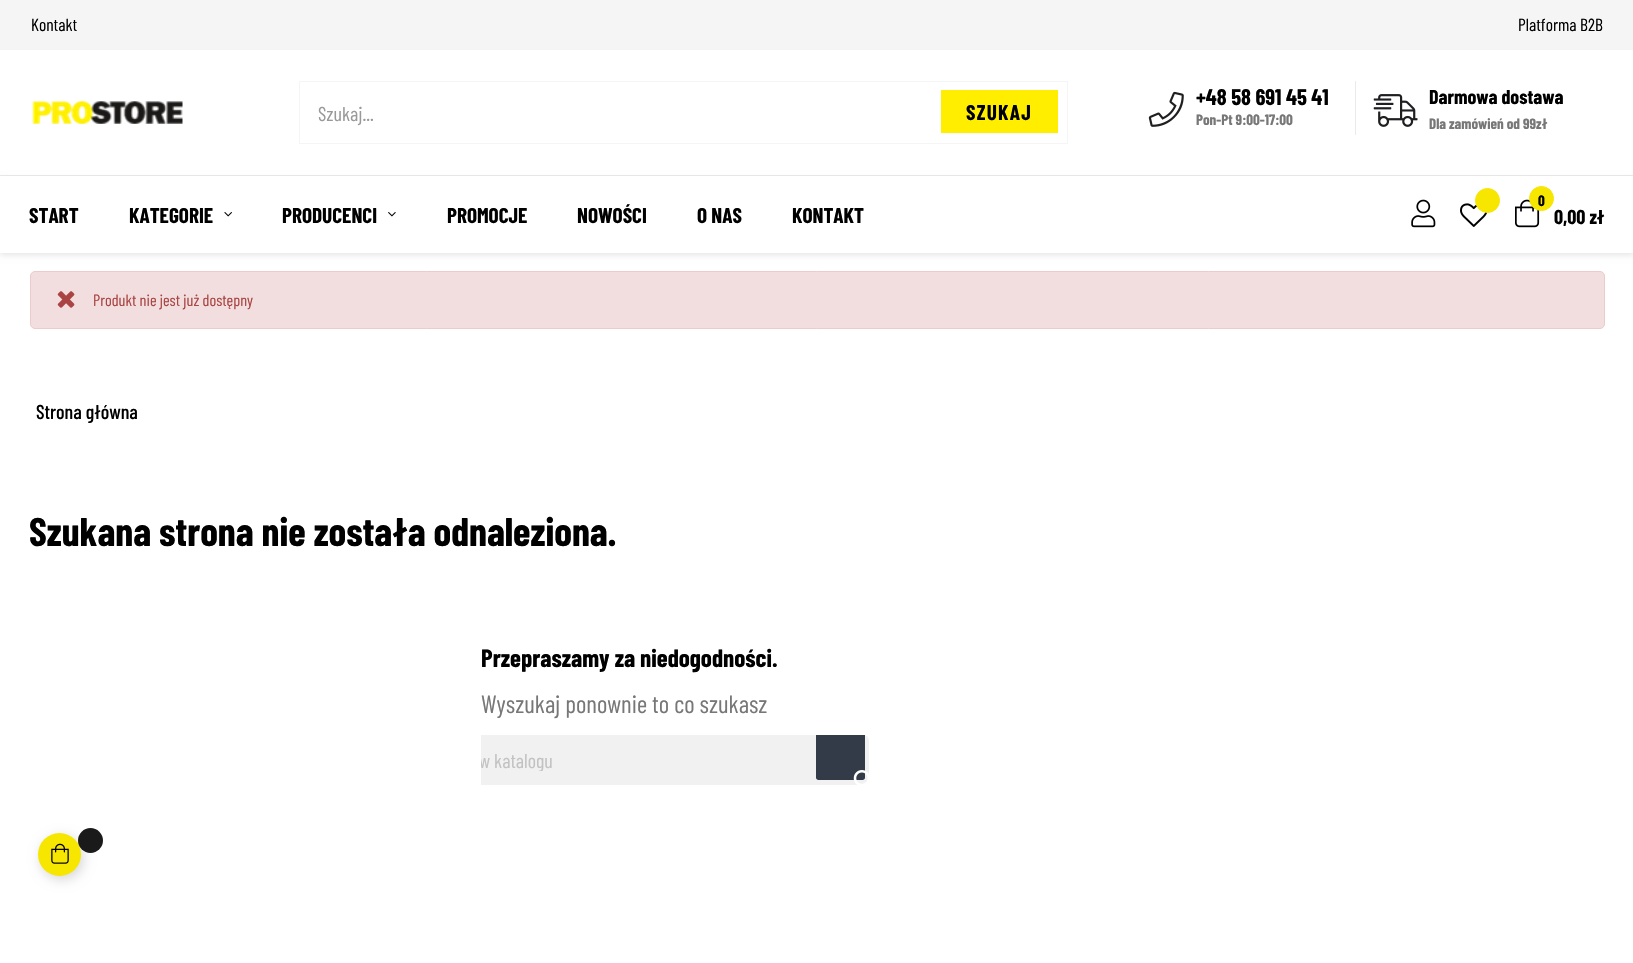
void draw(SkCanvas* c) {
SkPaint p;
p.setAntiAlias(true);
auto F=[&](const char* family, int weight, float size, bool italic = false){SkFontStyle style(weight, SkFontStyle::kNormal_Width,italic ? SkFontStyle::kItalic_Slant : SkFontStyle::kUpright_Slant);SkFont result(fontMgr->matchFamilyStyle(family, style), size);result.setSubpixel(true);return result;};
auto T=[&](const char* s, float x, float y, const SkFont& font){c->drawString(s, x, y, font, p);};
auto L=[&](const char* s, float x, float y, const SkFont& font, const SkPaint& ink, float letter, float word){std::vector<SkGlyphID> glyphs(font.countText(s, strlen(s), SkTextEncoding::kUTF8));std::vector<float> xs(glyphs.size());font.textToGlyphs(s, strlen(s), SkTextEncoding::kUTF8, glyphs);font.getXPos(glyphs, xs, x);float extra = 0;for (size_t i = 0; i < glyphs.size(); i++) {xs[i] += extra;extra += letter + word * (glyphs[i] == font.unicharToGlyph(' '));}c->drawTextBlob(SkTextBlob::MakeFromPosHGlyphs(glyphs, xs, y, font), 0, 0, ink);};
auto R=[&](float x, float y, float w, float h){c->drawRect(SkRect::MakeXYWH(x, y, w, h), p);};
auto I=[&](const char* path, float x, float y, float w, float h){auto image = SkImages::DeferredFromEncodedData(SkData::MakeFromFileName(path));c->drawImageRect(image, SkRect::MakeXYWH(x, y, w, h), SkSamplingOptions());};
auto P=[&](const char* data, bool evenOdd = false){SkPath result = *SkParsePath::FromSVGString(data);if (evenOdd) result.setFillType(SkPathFillType::kEvenOdd);return result;};
c->clear(0xffffffff);
p.setColor(0xffeaeaea);
R(0,175,1633,1);
p.setColor(0xfff5f5f5);
R(0,0,1633,50);
auto f1 = F("Barlow Condensed",400,17.5);
p.setColor(0xff000000);
T("Kontakt",31,31,f1);
T("Platforma B2B",1518,31,f1);
I("1.png",32,101,151,23);
p.setStroke(true);
p.setStrokeWidth(1);
p.setColor(0xfff5f5f5);
c->drawRect(SkRect::MakeXYWH(299.5,81.5,768,62),p);
auto f2 = F("Barlow Condensed",400,20);
p.setStroke(false);
p.setColor(0xff999999);
T("Szukaj...",318,121,f2);
p.setColor(0xffffee00);
R(941,90,117,43);
auto f3 = F("Barlow Condensed",700,21.25);
p.setColor(0xff000000);
L("SZUKAJ",966,120,f3,p,1.25,0);
I("2.png",1148,91,36,36);
auto f4 = F("Barlow Condensed",700,22.5);
T("+48 58 691 45 41",1196,105,f4);
auto f5 = F("Barlow Condensed",700,15);
p.setColor(0xff777777);
T("Pon-Pt 9:00-17:00",1196,125,f5);
p.setColor(0xffeaeaea);
R(1355,81,1,54);
I("3.png",1373,94,45,33);
auto f6 = F("Barlow Condensed",700,20);
p.setColor(0xff000000);
T("Darmowa dostawa",1429,104,f6);
p.setColor(0xff777777);
T("Dla zamówień od 99zł",1429,129,f5);
p.setColor(0x1a000000);
p.setMaskFilter(SkMaskFilter::MakeBlur(kNormal_SkBlurStyle, 3));
c->drawRect(SkRect::MakeXYWH(0,179,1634,76),p);
p.setMaskFilter(nullptr);
p.setColor(0xffffffff);
R(0,176,1633,77);
p.setColor(0xff000000);
T("START",29,223,f3);
T("KATEGORIE",129,223,f3);
I("4.png",224,212,8,5);
T("PRODUCENCI",282,223,f3);
I("5.png",388,212,8,5);
T("PROMOCJE",447,223,f3);
T("NOWOŚCI",577,223,f3);
T("O NAS",697,223,f3);
T("KONTAKT",792,223,f3);
I("6.png",1411,199,25,29);
I("7.png",1460,203,28,24);
p.setColor(0xfff7e600);
c->drawCircle(1487.5,200.5,12,p);
p.setStroke(true);
c->drawCircle(1487.5,200.5,12,p);
I("8.png",1515,199,25,29);
p.setStroke(false);
c->drawCircle(1541.5,198.5,12,p);
p.setStroke(true);
c->drawCircle(1541.5,198.5,12,p);
p.setStroke(false);
p.setColor(0xff000000);
T("0",1538,206,f5);
T("0,00 zł",1554,224,f6);
p.setColor(0xfff2dede);
c->drawRoundRect(SkRect::MakeXYWH(30.5,271.5,1574,57),4.5,4.5,p);
p.setStroke(true);
p.setColor(0xffebcccc);
c->drawRoundRect(SkRect::MakeXYWH(30.5,271.5,1574,57),4.5,4.5,p);
I("9.png",57,291,18,17);
auto f7 = F("Barlow Condensed",400,16.25);
p.setStroke(false);
p.setColor(0xffa94442);
T("Produkt nie jest już dostępny",93,306,f7);
auto f8 = F("Barlow Condensed",500,20);
p.setColor(0xff000000);
T("Strona główna",36,419,f8);
auto f9 = F("Barlow Condensed",700,40);
T("Szukana strona nie została odnaleziona.",29,546,f9);
auto f10 = F("Barlow Condensed",700,25);
T("Przepraszamy za niedogodności.",481,667,f10);
auto f11 = F("Barlow Condensed",400,25);
p.setColor(0xff777777);
T("Wyszukaj ponownie to co szukasz",481,713,f11);
p.setColor(0xfff1f1f1);
c->drawPath(P("M481 735h382c3.5 0 6 2.5 6 6v38c0 3.5-2.5 6-6 6h-382z"),p);
c->save();
c->clipRect(SkRect::MakeXYWH(481,748,363,23));
p.setColor(0xffc2c2c2);
T("w katalogu",479,768,f2);
c->restore();
p.setColor(0xff333b48);
c->drawPath(P("M816 735h49v42.5c0 1.5-1 2.5-2.5 2.5h-44c-1.5 0-2.5-1-2.5-2.5z"),p);
I("10.png",853,770,16,15);
p.setColor(0x26000000);
p.setMaskFilter(SkMaskFilter::MakeBlur(kNormal_SkBlurStyle, 6));
c->drawRoundRect(SkRect::MakeXYWH(40,836,44,44),22,22,p);
p.setMaskFilter(nullptr);
p.setColor(0xfff7e600);
c->drawCircle(59.5,854.5,21.5,p);
I("11.png",51,843,18,21);
p.setColor(0xff1a1a1a);
c->drawCircle(90.5,840.5,12.5,p);
}
